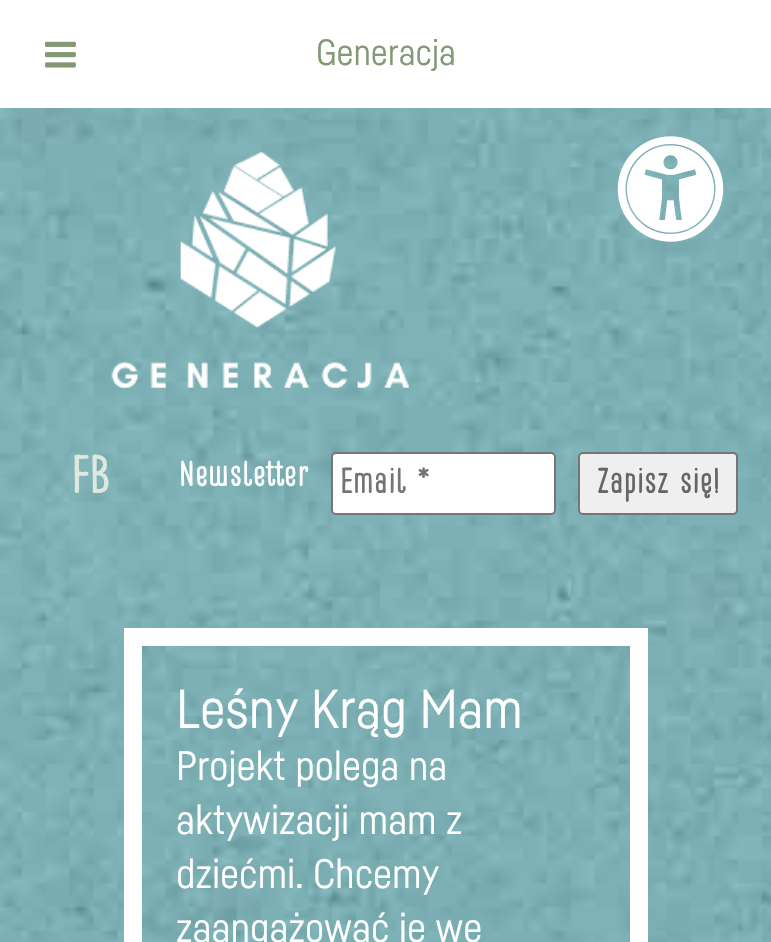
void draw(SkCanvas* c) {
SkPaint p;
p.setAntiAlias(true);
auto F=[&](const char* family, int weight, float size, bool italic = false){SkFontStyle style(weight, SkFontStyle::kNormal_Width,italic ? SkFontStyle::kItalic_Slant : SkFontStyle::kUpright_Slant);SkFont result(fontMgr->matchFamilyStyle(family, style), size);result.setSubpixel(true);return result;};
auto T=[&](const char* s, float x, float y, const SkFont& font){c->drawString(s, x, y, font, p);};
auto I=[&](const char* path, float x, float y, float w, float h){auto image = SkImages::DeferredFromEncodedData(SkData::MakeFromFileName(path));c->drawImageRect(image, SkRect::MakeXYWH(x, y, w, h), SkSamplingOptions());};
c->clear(0xffffffff);
I("1.png",0,108,771,834);
I("2.png",45,41,31,27);
auto f1 = F("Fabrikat",400,36);
p.setColor(0xff829974);
T("Generacja",316,65,f1);
I("3.png",617,136,107,106);
I("4.png",111,152,299,238);
auto f2 = F("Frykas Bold",700,54);
p.setColor(0xffdde8df);
T("FB",71,493,f2);
auto f3 = F("Frykas Bold",700,36);
p.setColor(0xffffffff);
T("Newsletter",179,486,f3);
c->drawRoundRect(SkRect::MakeXYWH(332,453,223,61),4,4,p);
p.setStroke(true);
p.setStrokeWidth(2);
p.setColor(0xff767676);
c->drawRoundRect(SkRect::MakeXYWH(332,453,223,61),4,4,p);
p.setStroke(false);
p.setColor(0xff757575);
T("Email *",340,493,f3);
p.setColor(0xffefefef);
c->drawRoundRect(SkRect::MakeXYWH(579,453,158,61),4,4,p);
p.setStroke(true);
p.setColor(0xff767676);
c->drawRoundRect(SkRect::MakeXYWH(579,453,158,61),4,4,p);
p.setStroke(false);
p.setColor(0xff666666);
T("Zapisz się!",597,493,f3);
p.setStroke(true);
p.setStrokeWidth(18);
p.setColor(0xffffffff);
c->drawRect(SkRect::MakeXYWH(133,637,506,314),p);
auto f4 = F("Fabrikat",400,54);
p.setStroke(false);
T("Leśny Krąg Mam",176,728,f4);
auto f5 = F("Fabrikat",400,40.5);
T("Projekt polega na",176,780,f5);
T("aktywizacji mam z",176,834,f5);
T("dziećmi. Chcemy",176,888,f5);
T("zaangażować je we",176,942,f5);
}
